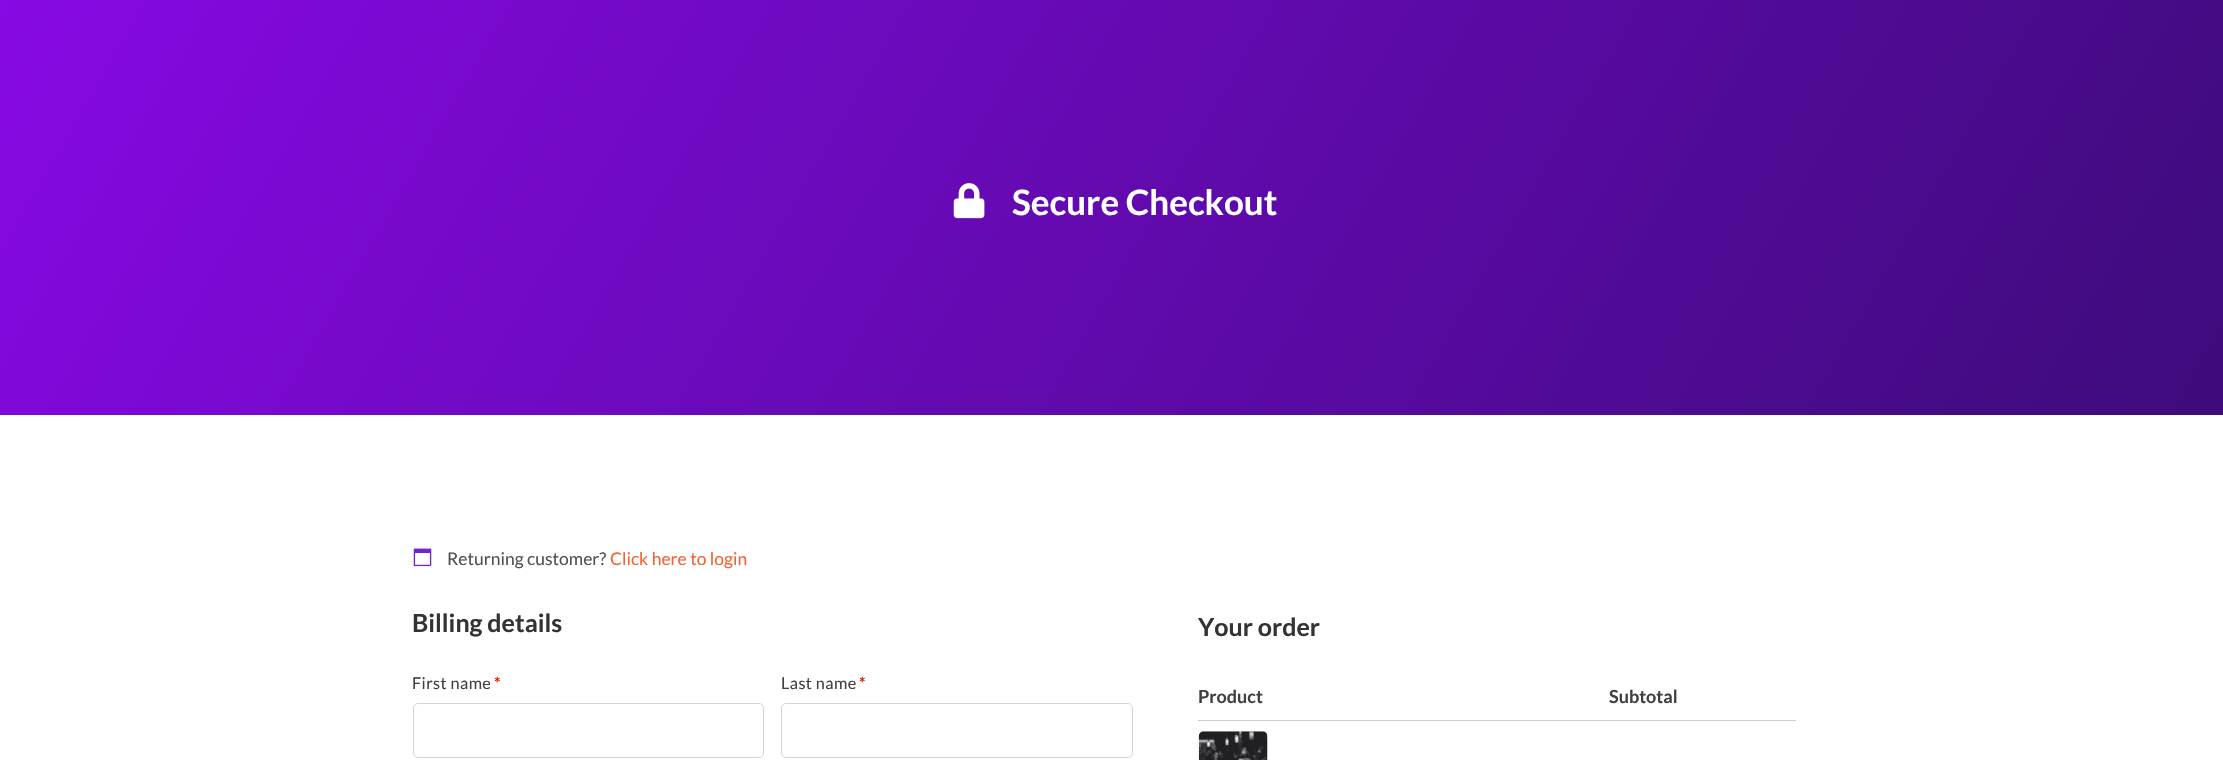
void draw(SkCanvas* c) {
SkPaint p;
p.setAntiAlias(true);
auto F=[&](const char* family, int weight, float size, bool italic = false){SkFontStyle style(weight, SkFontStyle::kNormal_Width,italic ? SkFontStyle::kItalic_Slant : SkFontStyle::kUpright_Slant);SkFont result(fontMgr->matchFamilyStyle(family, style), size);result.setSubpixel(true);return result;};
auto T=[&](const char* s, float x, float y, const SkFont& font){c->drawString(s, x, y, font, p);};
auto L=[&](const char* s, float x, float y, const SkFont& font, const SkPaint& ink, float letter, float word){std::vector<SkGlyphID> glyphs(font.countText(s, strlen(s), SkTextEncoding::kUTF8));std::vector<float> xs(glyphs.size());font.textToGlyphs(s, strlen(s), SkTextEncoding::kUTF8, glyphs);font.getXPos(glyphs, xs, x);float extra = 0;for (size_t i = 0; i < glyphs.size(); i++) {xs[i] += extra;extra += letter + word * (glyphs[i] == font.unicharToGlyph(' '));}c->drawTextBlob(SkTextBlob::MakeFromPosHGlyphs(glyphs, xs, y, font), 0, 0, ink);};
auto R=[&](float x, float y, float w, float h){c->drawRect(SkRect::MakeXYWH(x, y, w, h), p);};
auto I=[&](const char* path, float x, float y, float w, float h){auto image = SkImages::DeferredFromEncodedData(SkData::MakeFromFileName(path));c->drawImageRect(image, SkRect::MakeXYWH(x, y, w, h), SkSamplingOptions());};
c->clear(0xffffffff);
{
const SkColor colors[] = {0xff8709e3,0xff3d0b7b};
const float stops[] = {0,1};
const SkPoint ends[] = {{188,-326}, {2036,741}};
p.setShader(SkGradientShader::MakeLinear(ends, colors, stops, 2, SkTileMode::kClamp));
p.setAlpha(255);
}
R(0,0,2223,415);
I("1.png",953,183,32,36);
auto f1 = F("Lato",700,35);
p.setShader(nullptr);
p.setColor(0xffffffff);
T("Secure Checkout",1012,215,f1);
I("2.png",413,548,19,19);
auto f2 = F("Lato",400,17.5);
p.setColor(0xff515151);
T("Returning customer?",447,565,f2);
p.setColor(0xfff16334);
T("Click here to login",610,565,f2);
auto f3 = F("Lato",700,25);
p.setColor(0xff333333);
T("Billing details",412,632,f3);
auto f4 = F("Lato",400,16.25);
p.setColor(0xff404040);
L("First name",412,689,f4,p,.4,0);
auto f5 = F("Lato",700,16.25);
p.setColor(0xffe11e00);
L("*",494,689,f5,p,.4,0);
p.setStroke(true);
p.setStrokeWidth(1);
p.setColor(0xffd4d4d4);
c->drawRoundRect(SkRect::MakeXYWH(413.5,703.5,350,54),4.5,4.5,p);
p.setStroke(false);
p.setColor(0xff404040);
L("Last name",781,689,f4,p,.4,0);
p.setColor(0xffe11e00);
L("*",859,689,f5,p,.4,0);
p.setStroke(true);
p.setColor(0xffd4d4d4);
c->drawRoundRect(SkRect::MakeXYWH(781.5,703.5,351,54),4.5,4.5,p);
p.setStroke(false);
p.setColor(0xff333333);
T("Your order",1198,636,f3);
auto f6 = F("Lato",700,18);
p.setColor(0xff404040);
T("Product",1198,703,f6);
T("Subtotal",1609,703,f6);
p.setColor(0xffcccccc);
R(1198,720,598,1);
I("3.png",1198,731,70,29);
}
